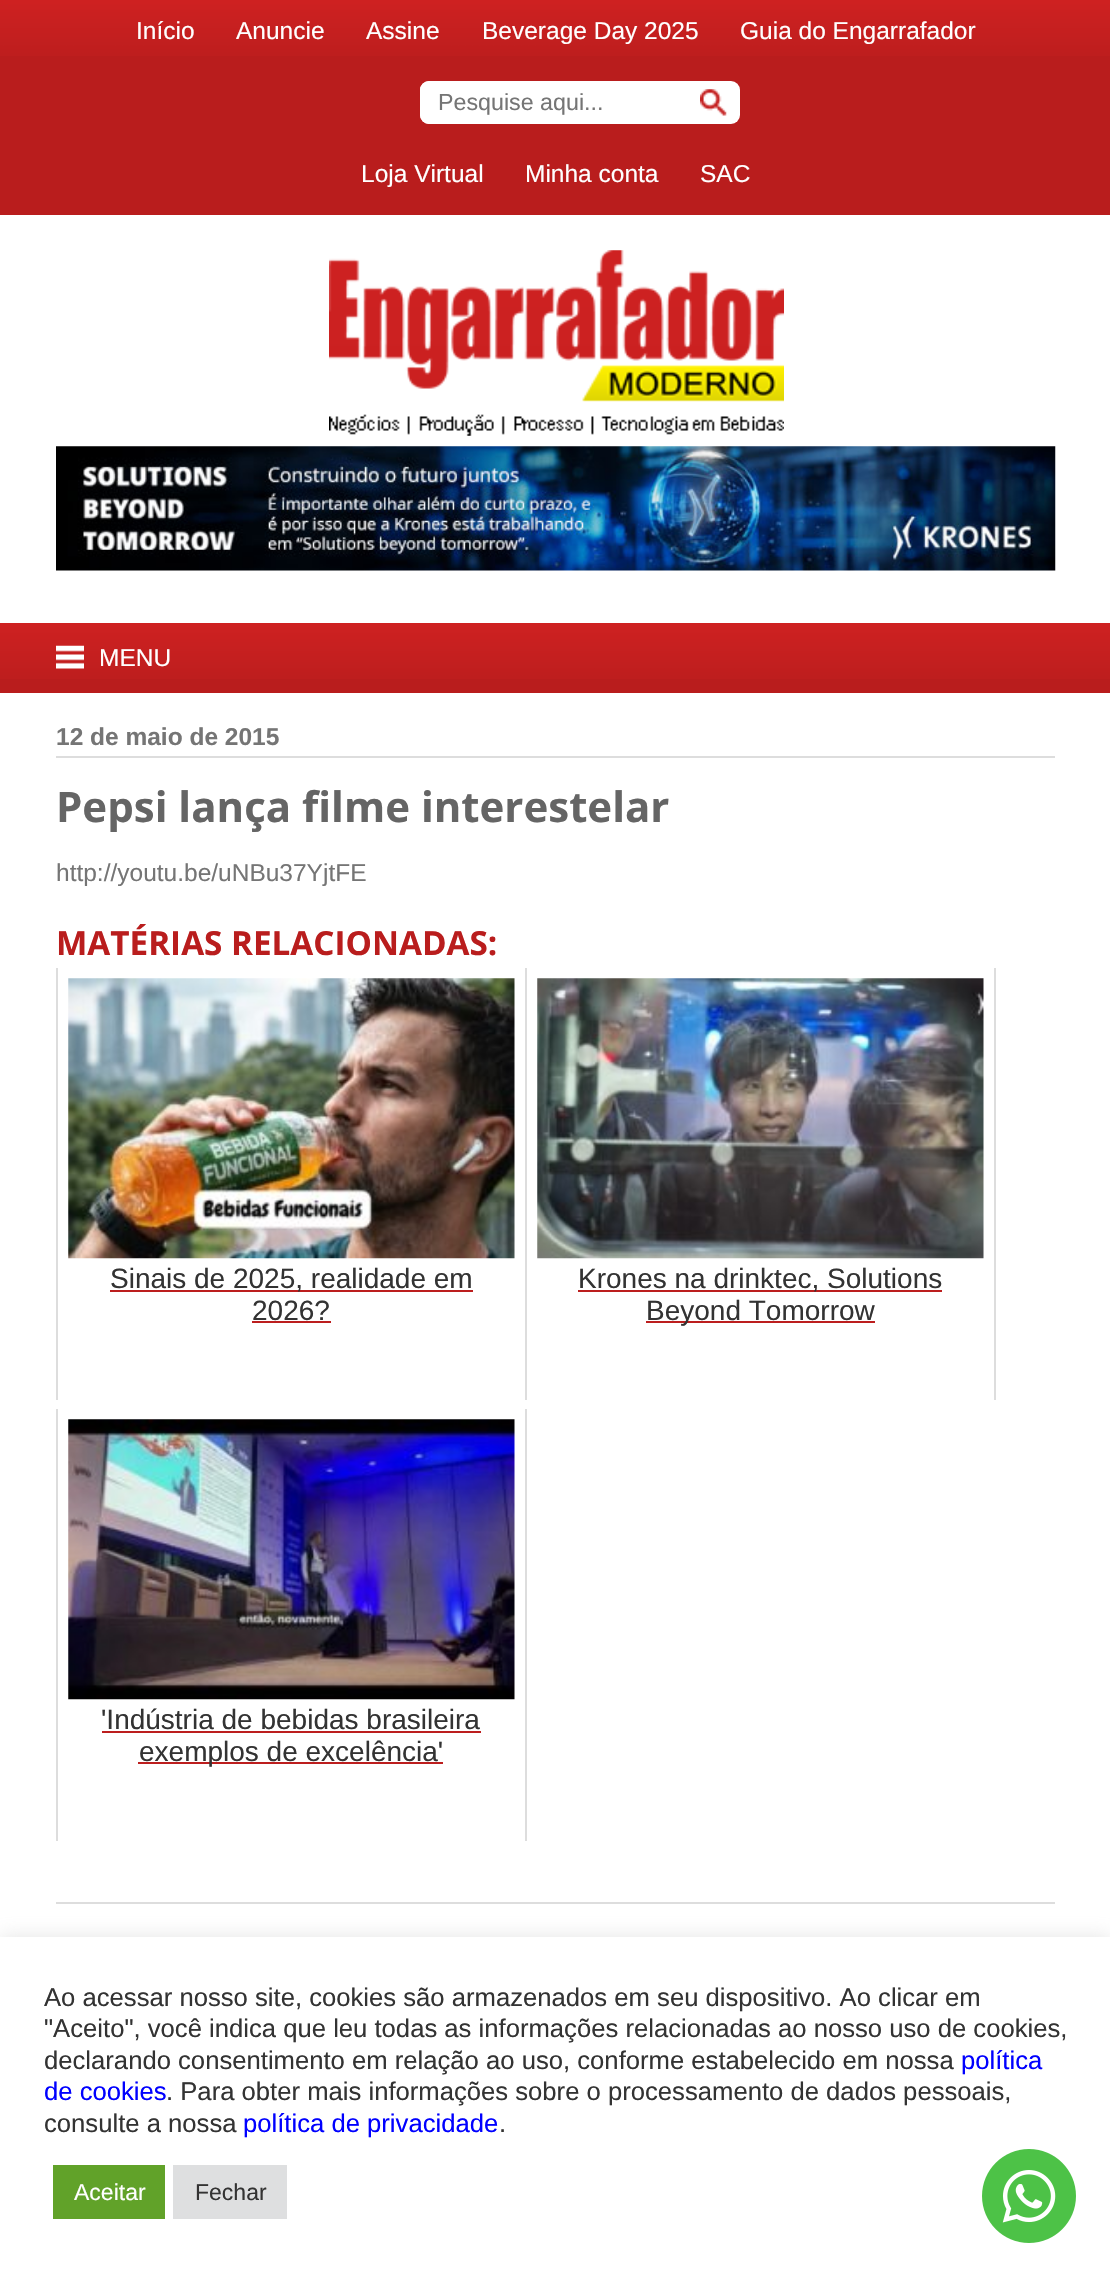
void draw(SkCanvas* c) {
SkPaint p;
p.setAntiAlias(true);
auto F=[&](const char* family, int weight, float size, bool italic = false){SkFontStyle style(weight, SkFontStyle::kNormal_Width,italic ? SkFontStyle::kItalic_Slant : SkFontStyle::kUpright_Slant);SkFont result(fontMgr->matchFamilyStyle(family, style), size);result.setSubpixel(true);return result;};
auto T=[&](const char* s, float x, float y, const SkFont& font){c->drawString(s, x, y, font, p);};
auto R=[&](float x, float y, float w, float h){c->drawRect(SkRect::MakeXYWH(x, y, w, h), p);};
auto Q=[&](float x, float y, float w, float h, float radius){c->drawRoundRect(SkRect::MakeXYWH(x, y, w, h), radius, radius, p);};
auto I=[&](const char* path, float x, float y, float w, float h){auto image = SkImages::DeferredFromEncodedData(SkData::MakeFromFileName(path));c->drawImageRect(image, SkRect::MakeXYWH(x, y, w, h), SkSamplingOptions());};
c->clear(0xffffffff);
p.setColor(0xffb91d1d);
R(0,56,1110,159);
I("1.png",0,0,1110,56);
auto f1 = F("Liberation Sans",400,24.5);
p.setColor(0xffffffff);
T("Início",136,39,f1);
T("Anuncie",236,39,f1);
T("Assine",366,39,f1);
T("Beverage Day 2025",482,39,f1);
T("Guia do Engarrafador",740,39,f1);
Q(420,81,320,43,9);
Q(420,81,280,43,9);
auto f2 = F("Liberation Sans",400,23.25);
p.setColor(0xff757575);
T("Pesquise aqui...",438,110,f2);
I("2.png",700,89,27,27);
p.setColor(0xffffffff);
T("Loja Virtual",361,182,f1);
T("Minha conta",525,182,f1);
T("SAC",700,182,f1);
I("3.png",329,250,455,186);
I("4.png",56,446,1000,125);
p.setColor(0xffb91d1d);
R(0,679,1110,14);
I("5.png",0,623,1110,56);
I("6.png",56,645,28,24);
p.setColor(0xffffffff);
T("MENU",99,666,f1);
p.setColor(0xffdddddd);
R(56,756,999,2);
auto f3 = F("Liberation Sans",700,24.5);
p.setColor(0xff757575);
T("12 de maio de 2015",56,745,f3);
auto f4 = F("Open Sans",700,42);
p.setColor(0xff656565);
T("Pepsi lança filme interestelar",56,822,f4);
p.setColor(0xff757575);
T("http://youtu.be/uNBu37YjtFE",56,881,f1);
auto f5 = F("Open Sans",700,33.25);
p.setColor(0xffb91d1d);
T("MATÉRIAS RELACIONADAS:",56,955,f5);
p.setColor(0xffdddddd);
R(56,968,2,432);
I("7.png",68,978,447,281);
p.setColor(0xffbc1e1e);
R(110,1290,363,2);
auto f6 = F("Liberation Sans",400,28);
p.setColor(0xff333333);
T("Sinais de 2025, realidade em",110,1288,f6);
T("2026?",252,1320,f6);
p.setColor(0xffbc1e1e);
R(252,1321,79,2);
p.setColor(0xffdddddd);
R(994,968,2,432);
R(525,968,2,432);
I("8.png",537,978,447,281);
p.setColor(0xffbc1e1e);
R(578,1290,364,2);
p.setColor(0xff333333);
T("Krones na drinktec, Solutions",578,1288,f6);
p.setColor(0xffbc1e1e);
R(646,1321,229,2);
p.setColor(0xff333333);
T("Beyond Tomorrow",646,1320,f6);
p.setColor(0xffdddddd);
R(525,1409,2,432);
R(56,1409,2,432);
I("9.png",68,1419,447,281);
p.setColor(0xff333333);
T("'Indústria de bebidas brasileira",101,1729,f6);
p.setColor(0xffbc1e1e);
R(102,1731,379,2);
R(138,1762,305,2);
p.setColor(0xff333333);
T("exemplos de excelência'",139,1761,f6);
p.setColor(0xffdddddd);
R(56,1902,999,2);
p.setColor(0x4dacabab);
p.setMaskFilter(SkMaskFilter::MakeBlur(kNormal_SkBlurStyle, 9));
c->drawRect(SkRect::MakeXYWH(0,1936,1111,334),p);
p.setMaskFilter(nullptr);
p.setColor(0xffffffff);
R(0,1937,1110,334);
auto f7 = F("Liberation Sans",400,25.65);
p.setColor(0xff333333);
T("Ao acessar nosso site, cookies são armazenados em seu dispositivo. Ao clicar em",44,2006,f7);
T("\"Aceito\", você indica que leu todas as informações relacionadas ao nosso uso de cookies,",44,2037,f7);
T("declarando consentimento em relação ao uso, conforme estabelecido em nossa",44,2069,f7);
p.setColor(0xff0000ff);
T("política",961,2069,f7);
T("de cookies",44,2100,f7);
p.setColor(0xff333333);
T(". Para obter mais informações sobre o processamento de dados pessoais,",166,2100,f7);
T("consulte a nossa",44,2132,f7);
p.setColor(0xff0000ff);
T("política de privacidade",243,2132,f7);
p.setColor(0xff333333);
T(".",499,2132,f7);
p.setColor(0xff61a229);
R(53,2165,112,54);
auto f8 = F("Liberation Sans",400,23);
p.setColor(0xffffffff);
T("Aceitar",74,2200,f8);
p.setColor(0xffdedfe0);
R(173,2165,114,54);
p.setColor(0xff333333);
T("Fechar",195,2200,f8);
I("10.png",982,2149,94,94);
}
